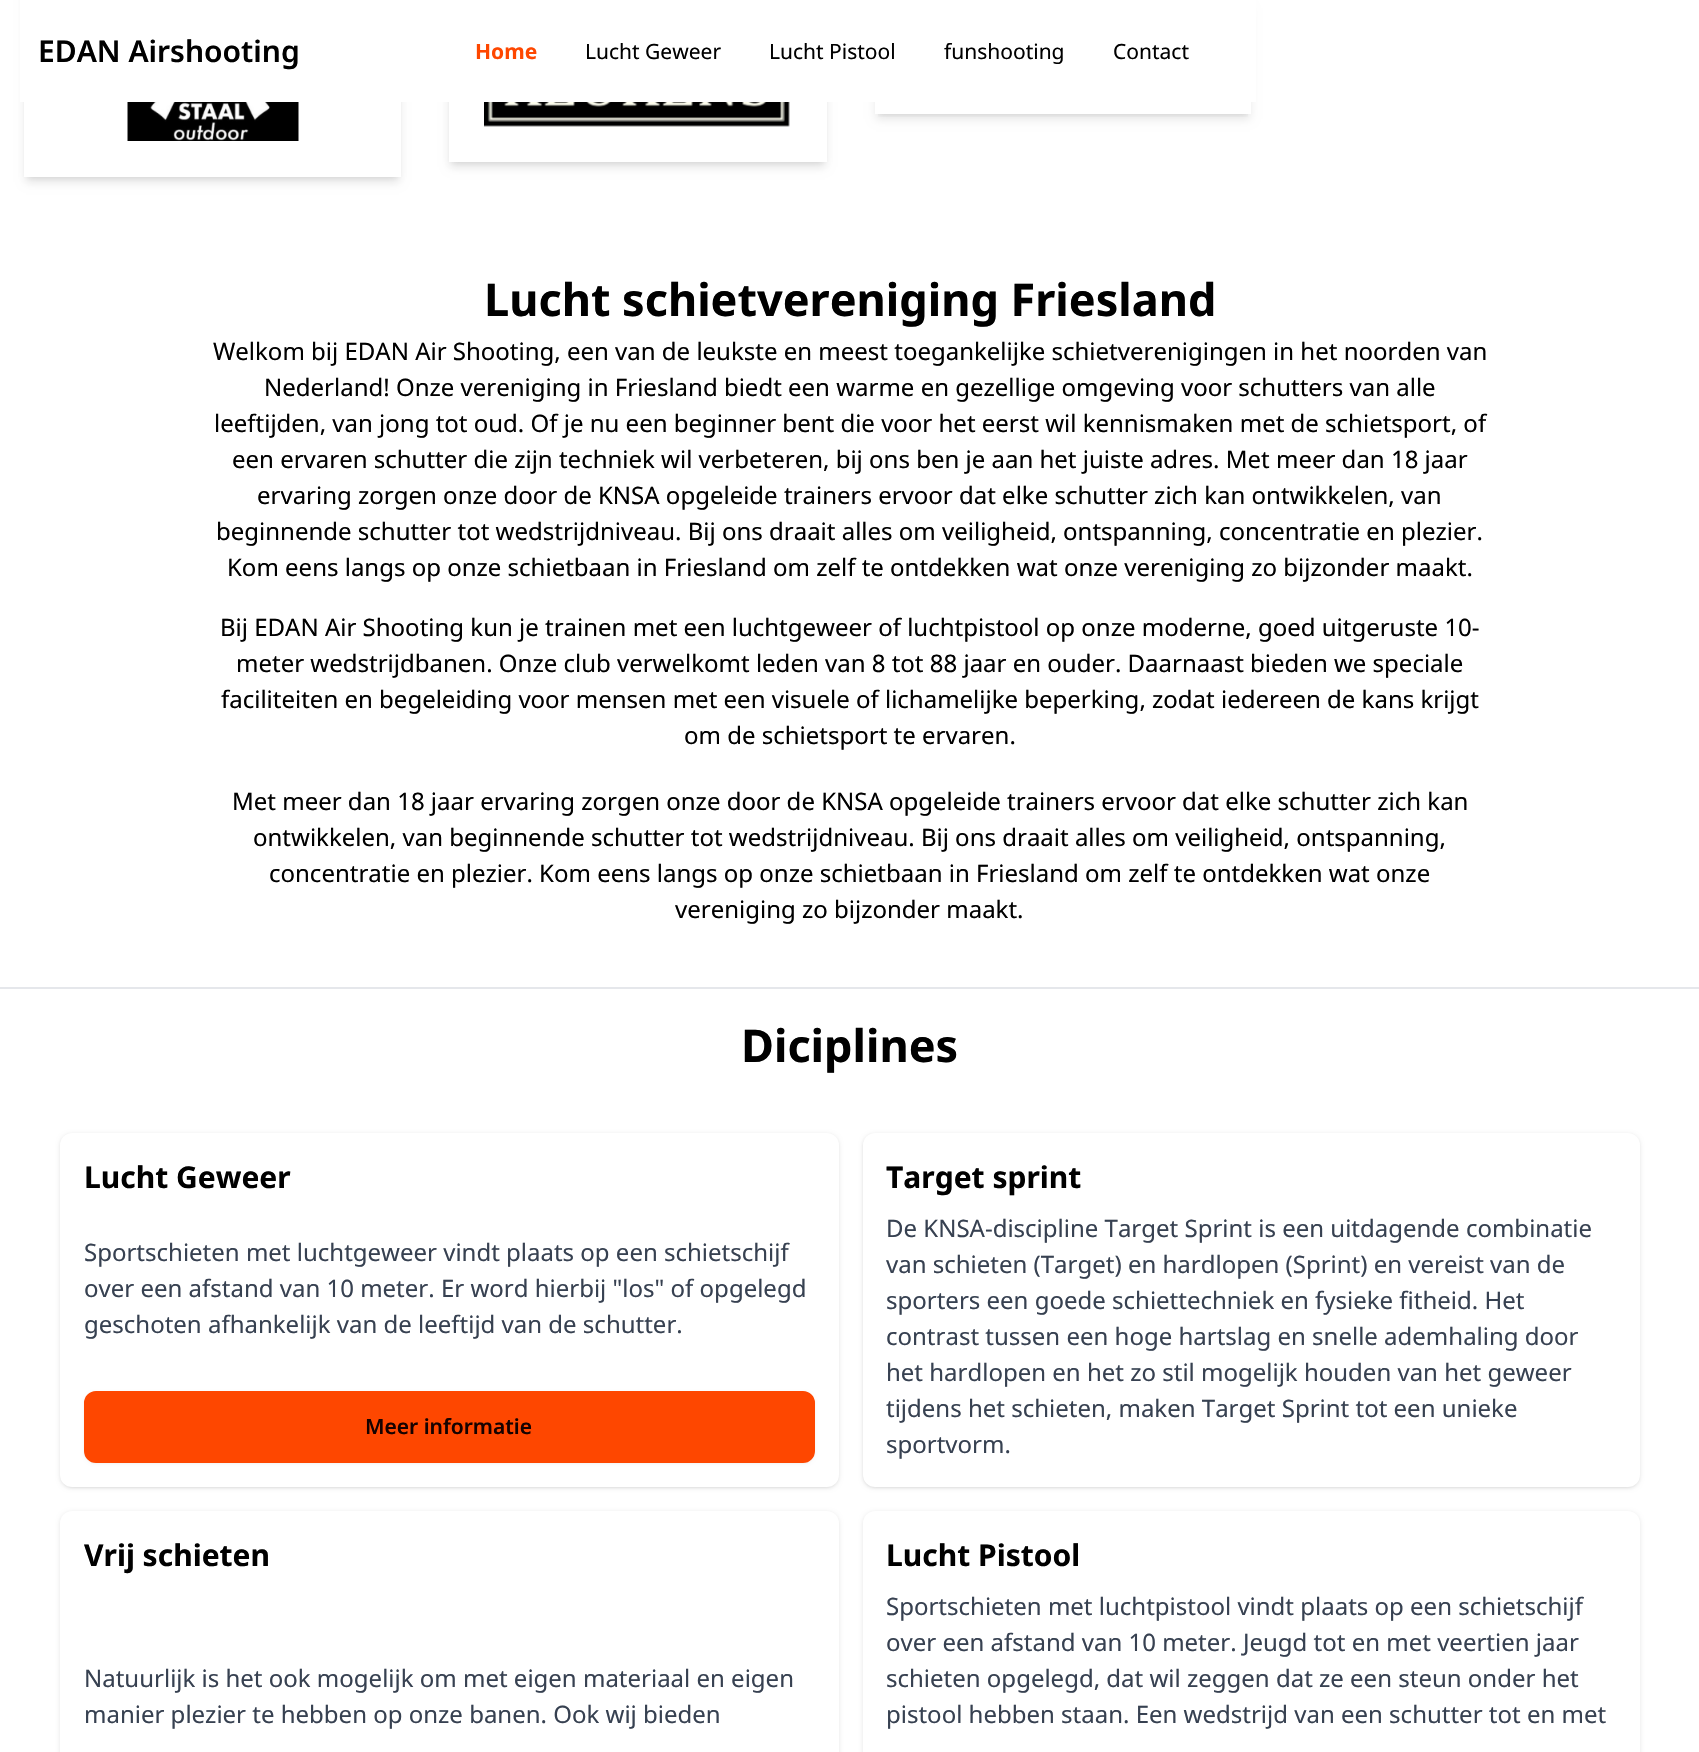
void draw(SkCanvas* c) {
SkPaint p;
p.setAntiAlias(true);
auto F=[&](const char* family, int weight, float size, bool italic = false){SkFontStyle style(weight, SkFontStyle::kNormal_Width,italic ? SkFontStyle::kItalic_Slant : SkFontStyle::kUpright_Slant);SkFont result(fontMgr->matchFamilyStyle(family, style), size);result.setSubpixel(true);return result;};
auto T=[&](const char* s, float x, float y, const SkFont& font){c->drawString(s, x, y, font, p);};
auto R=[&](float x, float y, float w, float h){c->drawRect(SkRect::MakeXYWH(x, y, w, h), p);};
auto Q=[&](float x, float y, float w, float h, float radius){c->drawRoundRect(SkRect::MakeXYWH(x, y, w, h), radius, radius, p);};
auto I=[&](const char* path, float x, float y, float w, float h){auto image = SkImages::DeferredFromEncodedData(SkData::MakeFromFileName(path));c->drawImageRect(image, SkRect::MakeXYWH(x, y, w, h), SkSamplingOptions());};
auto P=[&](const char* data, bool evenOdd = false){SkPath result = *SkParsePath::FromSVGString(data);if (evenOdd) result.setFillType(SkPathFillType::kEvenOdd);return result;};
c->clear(0xffffffff);
p.setColor(0x1a000000);
p.setMaskFilter(SkMaskFilter::MakeBlur(kNormal_SkBlurStyle, 3));
c->drawRect(SkRect::MakeXYWH(27,-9,371,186),p);
p.setMaskFilter(nullptr);
p.setMaskFilter(SkMaskFilter::MakeBlur(kNormal_SkBlurStyle, 4.5));
c->drawRect(SkRect::MakeXYWH(26,-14,373,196),p);
p.setMaskFilter(nullptr);
p.setColor(0xffffffff);
R(24,102,377,75);
I("1.png",127,102,172,39);
p.setColor(0x1a000000);
p.setMaskFilter(SkMaskFilter::MakeBlur(kNormal_SkBlurStyle, 3));
c->drawRect(SkRect::MakeXYWH(452,-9,372,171),p);
p.setMaskFilter(nullptr);
p.setMaskFilter(SkMaskFilter::MakeBlur(kNormal_SkBlurStyle, 4.5));
c->drawRect(SkRect::MakeXYWH(450,-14,375,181),p);
p.setMaskFilter(nullptr);
p.setColor(0xffffffff);
R(449,102,378,60);
I("2.png",484,102,306,25);
c->save();
c->clipRect(SkRect::MakeXYWH(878,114,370,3));
p.setColor(0x1a000000);
p.setMaskFilter(SkMaskFilter::MakeBlur(kNormal_SkBlurStyle, 3));
c->drawRect(SkRect::MakeXYWH(878,6,370,108),p);
p.setMaskFilter(nullptr);
c->restore();
c->save();
c->clipPath(P("M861 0h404v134h-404zm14 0h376v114h-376z",true),true);
p.setMaskFilter(SkMaskFilter::MakeBlur(kNormal_SkBlurStyle, 4.5));
c->drawRect(SkRect::MakeXYWH(876,8,374,111),p);
p.setMaskFilter(nullptr);
c->restore();
p.setColor(0xffffffff);
R(20,0,1236,102);
auto f1 = F("Noto Sans",600,30);
p.setColor(0xff000000);
T("EDAN Airshooting",38,62,f1);
auto f2 = F("Noto Sans",700,21);
p.setColor(0xfffe4700);
T("Home",475,59,f2);
auto f3 = F("Noto Sans",400,21);
p.setColor(0xff000000);
T("Lucht Geweer",585,59,f3);
T("Lucht Pistool",769,59,f3);
T("funshooting",944,59,f3);
T("Contact",1113,59,f3);
auto f4 = F("Noto Sans",700,45);
T("Lucht schietvereniging Friesland",484,316,f4);
auto f5 = F("Noto Sans",400,24);
T("Welkom bij EDAN Air Shooting, een van de leukste en meest toegankelijke schietverenigingen in het noorden van",213,360,f5);
T("Nederland! Onze vereniging in Friesland biedt een warme en gezellige omgeving voor schutters van alle",264,396,f5);
T("leeftijden, van jong tot oud. Of je nu een beginner bent die voor het eerst wil kennismaken met de schietsport, of",214,432,f5);
T("een ervaren schutter die zijn techniek wil verbeteren, bij ons ben je aan het juiste adres. Met meer dan 18 jaar",232,468,f5);
T("ervaring zorgen onze door de KNSA opgeleide trainers ervoor dat elke schutter zich kan ontwikkelen, van",257,504,f5);
T("beginnende schutter tot wedstrijdniveau. Bij ons draait alles om veiligheid, ontspanning, concentratie en plezier.",216,540,f5);
T("Kom eens langs op onze schietbaan in Friesland om zelf te ontdekken wat onze vereniging zo bijzonder maakt.",227,576,f5);
T("Bij EDAN Air Shooting kun je trainen met een luchtgeweer of luchtpistool op onze moderne, goed uitgeruste 10-",220,636,f5);
T("meter wedstrijdbanen. Onze club verwelkomt leden van 8 tot 88 jaar en ouder. Daarnaast bieden we speciale",236,672,f5);
T("faciliteiten en begeleiding voor mensen met een visuele of lichamelijke beperking, zodat iedereen de kans krijgt",221,708,f5);
T("om de schietsport te ervaren.",684,744,f5);
T("Met meer dan 18 jaar ervaring zorgen onze door de KNSA opgeleide trainers ervoor dat elke schutter zich kan",232,810,f5);
T("ontwikkelen, van beginnende schutter tot wedstrijdniveau. Bij ons draait alles om veiligheid, ontspanning,",253,846,f5);
T("concentratie en plezier. Kom eens langs op onze schietbaan in Friesland om zelf te ontdekken wat onze",269,882,f5);
T("vereniging zo bijzonder maakt.",675,918,f5);
p.setColor(0xffe5e7eb);
R(0,987,1699,2);
p.setColor(0xff000000);
T("Diciplines",741,1062,f4);
p.setColor(0x1a000000);
p.setMaskFilter(SkMaskFilter::MakeBlur(kNormal_SkBlurStyle, 1.5));
c->drawRoundRect(SkRect::MakeXYWH(62,1136,775,351),11,11,p);
p.setMaskFilter(nullptr);
p.setMaskFilter(SkMaskFilter::MakeBlur(kNormal_SkBlurStyle, 2));
c->drawRoundRect(SkRect::MakeXYWH(60,1134,779,354),12,12,p);
p.setMaskFilter(nullptr);
p.setColor(0xffffffff);
Q(60,1133,779,354,12);
auto f6 = F("Noto Sans",700,30);
p.setColor(0xff000000);
T("Lucht Geweer",84,1188,f6);
p.setColor(0xff374151);
T("Sportschieten met luchtgeweer vindt plaats op een schietschijf",84,1261,f5);
T("over een afstand van 10 meter. Er word hierbij \"los\" of opgelegd",84,1297,f5);
T("geschoten afhankelijk van de leeftijd van de schutter.",84,1333,f5);
p.setColor(0x0d000000);
p.setMaskFilter(SkMaskFilter::MakeBlur(kNormal_SkBlurStyle, 1.5));
c->drawRoundRect(SkRect::MakeXYWH(84,1392,731,72),12,12,p);
p.setMaskFilter(nullptr);
p.setColor(0xfffe4700);
c->drawRoundRect(SkRect::MakeXYWH(85,1392,729,70),11,11,p);
p.setStroke(true);
p.setStrokeWidth(2);
c->drawRoundRect(SkRect::MakeXYWH(85,1392,729,70),11,11,p);
auto f7 = F("Noto Sans",600,21);
p.setStroke(false);
p.setColor(0xff160200);
T("Meer informatie",365,1434,f7);
p.setColor(0x1a000000);
p.setMaskFilter(SkMaskFilter::MakeBlur(kNormal_SkBlurStyle, 1.5));
c->drawRoundRect(SkRect::MakeXYWH(864,1136,774,351),11,11,p);
p.setMaskFilter(nullptr);
p.setMaskFilter(SkMaskFilter::MakeBlur(kNormal_SkBlurStyle, 2));
c->drawRoundRect(SkRect::MakeXYWH(863,1134,777,354),12,12,p);
p.setMaskFilter(nullptr);
p.setColor(0xffffffff);
Q(863,1133,777,354,12);
p.setColor(0xff000000);
T("Target sprint",886,1188,f6);
p.setColor(0xff374151);
T("De KNSA-discipline Target Sprint is een uitdagende combinatie",886,1237,f5);
T("van schieten (Target) en hardlopen (Sprint) en vereist van de",886,1273,f5);
T("sporters een goede schiettechniek en fysieke fitheid. Het",886,1309,f5);
T("contrast tussen een hoge hartslag en snelle ademhaling door",886,1345,f5);
T("het hardlopen en het zo stil mogelijk houden van het geweer",886,1381,f5);
T("tijdens het schieten, maken Target Sprint tot een unieke",886,1417,f5);
T("sportvorm.",886,1453,f5);
p.setColor(0x1a000000);
p.setMaskFilter(SkMaskFilter::MakeBlur(kNormal_SkBlurStyle, 2));
c->drawRoundRect(SkRect::MakeXYWH(60,1512,779,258),12,12,p);
p.setMaskFilter(nullptr);
p.setColor(0xffffffff);
Q(60,1511,779,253,12);
p.setColor(0xff000000);
T("Vrij schieten",84,1566,f6);
p.setColor(0xff374151);
T("Natuurlijk is het ook mogelijk om met eigen materiaal en eigen",84,1687,f5);
T("manier plezier te hebben op onze banen. Ook wij bieden",84,1723,f5);
p.setColor(0x1a000000);
p.setMaskFilter(SkMaskFilter::MakeBlur(kNormal_SkBlurStyle, 2));
c->drawRoundRect(SkRect::MakeXYWH(863,1512,777,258),12,12,p);
p.setMaskFilter(nullptr);
p.setColor(0xffffffff);
Q(863,1511,777,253,12);
p.setColor(0xff000000);
T("Lucht Pistool",886,1566,f6);
p.setColor(0xff374151);
T("Sportschieten met luchtpistool vindt plaats op een schietschijf",886,1615,f5);
T("over een afstand van 10 meter. Jeugd tot en met veertien jaar",886,1651,f5);
T("schieten opgelegd, dat wil zeggen dat ze een steun onder het",886,1687,f5);
T("pistool hebben staan. Een wedstrijd van een schutter tot en met",886,1723,f5);
}
